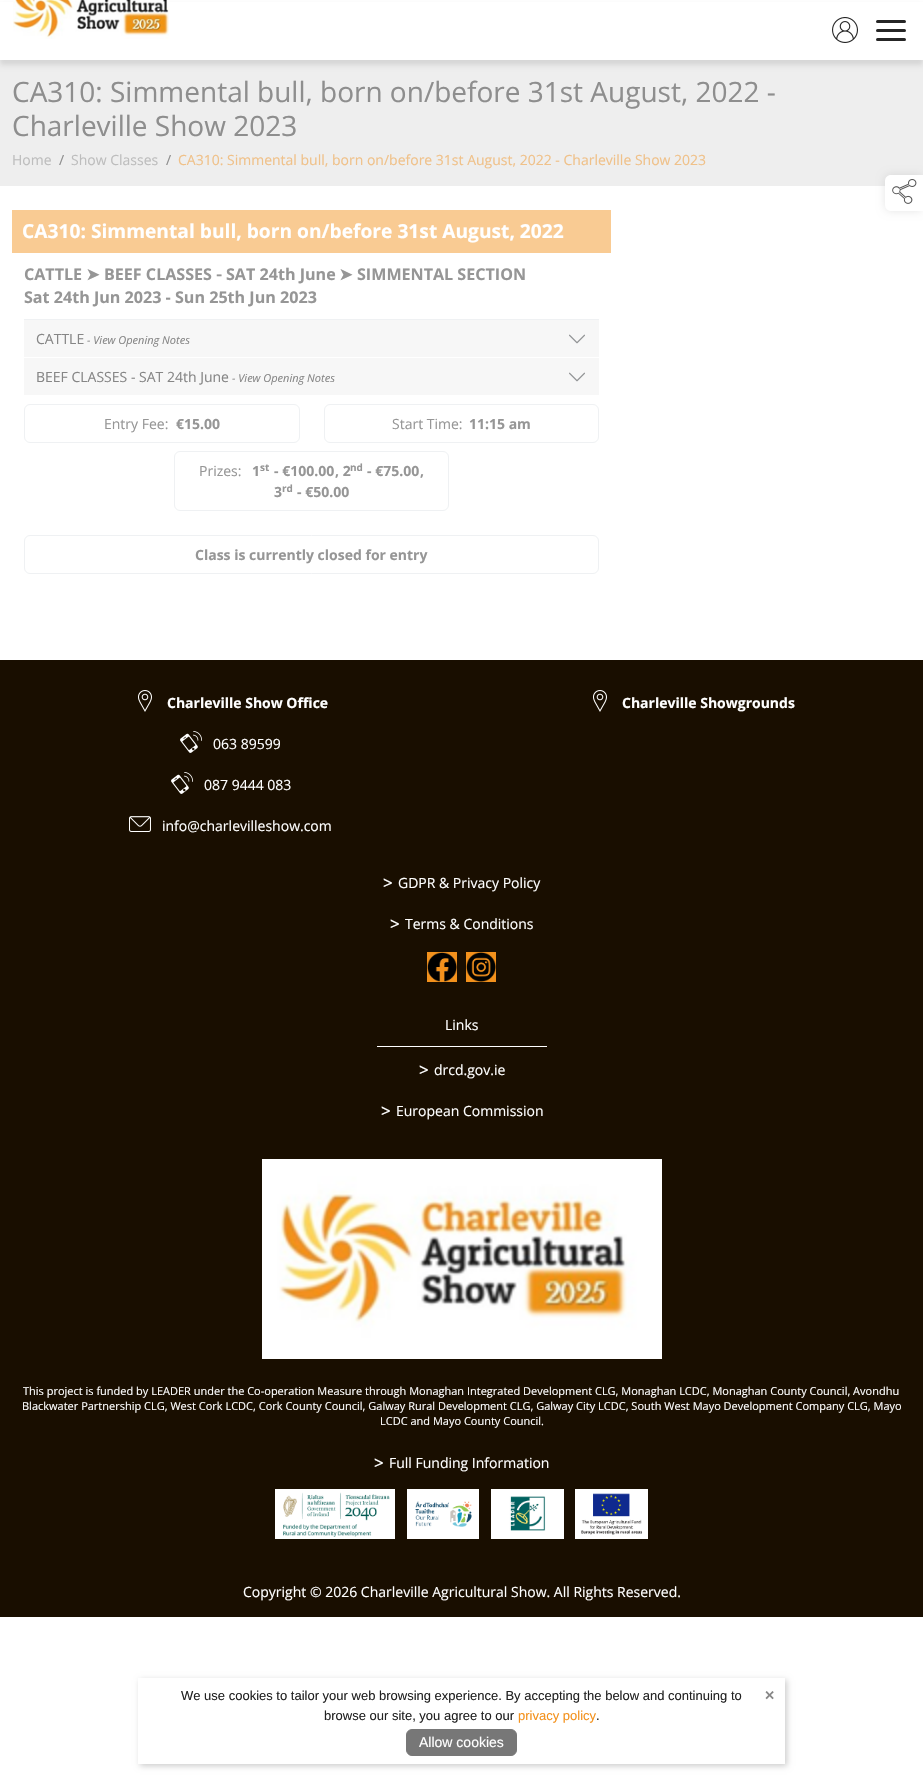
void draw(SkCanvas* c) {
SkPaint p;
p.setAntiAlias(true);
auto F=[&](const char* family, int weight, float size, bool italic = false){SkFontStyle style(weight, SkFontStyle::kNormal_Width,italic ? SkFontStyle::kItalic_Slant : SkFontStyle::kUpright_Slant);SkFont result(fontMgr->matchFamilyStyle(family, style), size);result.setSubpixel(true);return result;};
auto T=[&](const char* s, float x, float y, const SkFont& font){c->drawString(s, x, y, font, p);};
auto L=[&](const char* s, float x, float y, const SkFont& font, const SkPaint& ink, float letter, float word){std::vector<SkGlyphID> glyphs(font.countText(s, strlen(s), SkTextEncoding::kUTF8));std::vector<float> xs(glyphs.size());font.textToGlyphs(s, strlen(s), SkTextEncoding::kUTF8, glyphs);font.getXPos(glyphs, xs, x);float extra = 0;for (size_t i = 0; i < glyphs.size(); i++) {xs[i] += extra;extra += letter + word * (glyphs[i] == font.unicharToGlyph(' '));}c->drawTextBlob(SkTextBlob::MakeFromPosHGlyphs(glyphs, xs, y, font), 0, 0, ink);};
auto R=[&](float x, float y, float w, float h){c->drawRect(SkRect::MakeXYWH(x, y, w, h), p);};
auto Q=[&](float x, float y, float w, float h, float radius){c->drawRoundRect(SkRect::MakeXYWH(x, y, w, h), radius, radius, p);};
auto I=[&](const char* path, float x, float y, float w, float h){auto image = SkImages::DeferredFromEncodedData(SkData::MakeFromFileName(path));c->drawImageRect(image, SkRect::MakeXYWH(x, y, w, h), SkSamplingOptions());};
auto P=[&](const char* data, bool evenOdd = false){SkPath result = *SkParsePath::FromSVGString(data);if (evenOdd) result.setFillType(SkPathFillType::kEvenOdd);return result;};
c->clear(0xffffffff);
p.setColor(0xffeeeeee);
R(0,60,923,126);
p.setColor(0x1a000000);
p.setMaskFilter(SkMaskFilter::MakeBlur(kNormal_SkBlurStyle, 2.5));
c->drawRect(SkRect::MakeXYWH(0,5,923,60),p);
p.setMaskFilter(nullptr);
p.setColor(0xffffffff);
R(0,2,923,58);
I("1.png",13,0,156,39);
I("2.png",832,17,26,26);
p.setColor(0xff252525);
Q(876,29,30,3,1.5);
Q(876,20,30,3,1.5);
Q(876,38,30,3,1.5);
auto f1 = F("Open Sans",400,28);
p.setColor(0xff8e8e8e);
T("CA310: Simmental bull, born on/before 31st August, 2022 -",12,102,f1);
T("Charleville Show 2023",12,136,f1);
auto f2 = F("Open Sans",400,14);
p.setColor(0xffbdbdbd);
T("Home",12,165,f2);
p.setColor(0xff8e8e8e);
T("/",59,165,f2);
p.setColor(0xffbdbdbd);
T("Show Classes",71,165,f2);
p.setColor(0xff8e8e8e);
T("/",166,165,f2);
p.setColor(0xfff0c189);
T("CA310: Simmental bull, born on/before 31st August, 2022 - Charleville Show 2023",178,165,f2);
p.setColor(0x1a000000);
p.setMaskFilter(SkMaskFilter::MakeBlur(kNormal_SkBlurStyle, 4));
c->drawRoundRect(SkRect::MakeXYWH(885,175,38,36),6,6,p);
p.setMaskFilter(nullptr);
p.setColor(0xffffffff);
c->drawPath(P("M891 175h32v36h-32c-3.5 0-6-2.5-6-6v-24c0-3.5 2.5-6 6-6z"),p);
I("3.png",892,179,25,25);
p.setColor(0xfff9cb93);
R(12,210,599,43);
auto f3 = F("Open Sans",700,19.2);
p.setColor(0xffffffff);
T("CA310: Simmental bull, born on/before 31st August, 2022",22,238,f3);
p.setColor(0xffeff1f3);
R(24,319,575,1);
auto f4 = F("Open Sans",700,16.1);
p.setColor(0xff969696);
T("CATTLE",24,280,f4);
auto f5 = F("DejaVu Sans",700,16.1);
T("➤",86,280,f5);
T("BEEF CLASSES",104,280,f4);
T("-",216,280,f5);
T("SAT 24th June",226,280,f4);
T("➤",339,280,f5);
T("SIMMENTAL SECTION",357,280,f4);
T("Sat 24th Jun 2023 - Sun 25th Jun 2023",24,303,f4);
p.setColor(0xfff7f7f7);
R(24,320,575,37);
p.setColor(0xff868686);
T("CATTLE",36,344,f2);
auto f6 = F("Open Sans",400,11,true);
T("- View Opening Notes",87,344,f6);
I("4.png",569,334,16,10);
p.setColor(0xfff7f7f7);
R(24,358,575,37);
p.setColor(0xff868686);
T("BEEF CLASSES - SAT 24th June",36,382,f2);
T("- View Opening Notes",232,382,f6);
I("4.png",569,372,16,10);
p.setStroke(true);
p.setStrokeWidth(1);
p.setColor(0xffeff1f3);
c->drawRoundRect(SkRect::MakeXYWH(24.5,404.5,275,38),5.5,5.5,p);
p.setStroke(false);
p.setColor(0xff969696);
T("Entry Fee:",104,429,f2);
auto f7 = F("Open Sans",700,14);
T("€15.00",176,429,f7);
p.setStroke(true);
p.setColor(0xffeff1f3);
c->drawRoundRect(SkRect::MakeXYWH(324.5,404.5,274,38),5.5,5.5,p);
p.setStroke(false);
p.setColor(0xff969696);
T("Start Time:",392,429,f2);
T("11:15 am",469,429,f7);
p.setStroke(true);
p.setColor(0xffeff1f3);
c->drawRoundRect(SkRect::MakeXYWH(174.5,451.5,274,59),5.5,5.5,p);
p.setStroke(false);
p.setColor(0xff969696);
T("Prizes:",199,476,f2);
T("1",252,476,f7);
auto f8 = F("Open Sans",700,10);
T("st",260,471,f8);
T("- €100.00",274,476,f7);
T(", 2",335,476,f7);
T("nd",350,471,f8);
T("- €75.00",367,476,f7);
T(",",420,476,f7);
T("3",274,497,f7);
T("rd",282,492,f8);
T("- €50.00",297,497,f7);
p.setStroke(true);
p.setColor(0xffeff1f3);
c->drawRoundRect(SkRect::MakeXYWH(24.5,535.5,574,38),5.5,5.5,p);
p.setStroke(false);
p.setColor(0xff969696);
T("Class is currently closed for entry",195,560,f7);
p.setColor(0xff190e00);
R(0,660,923,957);
I("5.png",138,690,14,22);
p.setColor(0xffffffff);
T("Charleville Show Office",167,708,f7);
I("6.png",180,731,22,22);
T("063 89599",213,749,f2);
I("6.png",171,772,22,22);
T("087 9444 083",204,790,f2);
I("7.png",129,816,22,16);
T("info@charlevilleshow.com",162,831,f2);
I("5.png",593,690,14,22);
T("Charleville Showgrounds",622,708,f7);
auto f9 = F("Open Sans",500,17);
L(">",383,889,f9,p,-3,0);
T("GDPR & Privacy Policy",398,888,f2);
L(">",390,930,f9,p,-3,0);
T("Terms & Conditions",405,929,f2);
p.setColor(0xfff3911c);
R(427,952,30,30);
I("8.png",427,952,30,30);
R(466,952,30,30);
I("9.png",466,952,30,30);
p.setColor(0xffffffff);
R(377,1046,170,1);
T("Links",445,1030,f2);
L(">",419,1076,f9,p,-3,0);
T("drcd.gov.ie",434,1075,f2);
L(">",381,1117,f9,p,-3,0);
T("European Commission",396,1116,f2);
I("10.png",262,1159,400,200);
auto f10 = F("Open Sans",400,11);
T("This project is funded by LEADER under the Co-operation Measure through Monaghan Integrated Development CLG, Monaghan LCDC, Monaghan County Council, Avondhu",23,1395,f10);
T("Blackwater Partnership CLG, West Cork LCDC, Cork County Council, Galway Rural Development CLG, Galway City LCDC, South West Mayo Development Company CLG, Mayo",22,1410,f10);
T("LCDC and Mayo County Council.",380,1425,f10);
L(">",374,1469,f9,p,-3,0);
T("Full Funding Information",389,1468,f2);
I("11.png",275,1489,120,50);
I("12.png",407,1489,72,50);
I("13.png",491,1489,73,50);
I("14.png",575,1489,73,50);
T("Copyright © 2026 Charleville Agricultural Show. All Rights Reserved.",243,1597,f2);
c->save();
c->clipPath(P("M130 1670h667v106h-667zm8 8h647v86h-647z",true),true);
p.setColor(0x33000000);
p.setMaskFilter(SkMaskFilter::MakeBlur(kNormal_SkBlurStyle, 3));
c->drawRect(SkRect::MakeXYWH(140,1680,647,86),p);
p.setMaskFilter(nullptr);
c->restore();
auto f11 = F("Liberation Sans",400,13);
p.setColor(0xff222222);
T("We use cookies to tailor your web browsing experience. By accepting the below and continuing to",181,1700,f11);
T("browse our site, you agree to our",324,1720,f11);
p.setColor(0xfff3911c);
T("privacy policy",518,1720,f11);
p.setColor(0xff222222);
T(".",596,1720,f11);
auto f12 = F("DejaVu Sans",700,13);
p.setColor(0xff868686);
T("✕",764,1700,f12);
p.setColor(0xff777777);
c->drawRoundRect(SkRect::MakeXYWH(406.5,1729.5,110,26),5.5,5.5,p);
p.setStroke(true);
c->drawRoundRect(SkRect::MakeXYWH(406.5,1729.5,110,26),5.5,5.5,p);
auto f13 = F("Liberation Sans",400,14);
p.setStroke(false);
p.setColor(0xffffffff);
T("Allow cookies",419,1747,f13);
}
